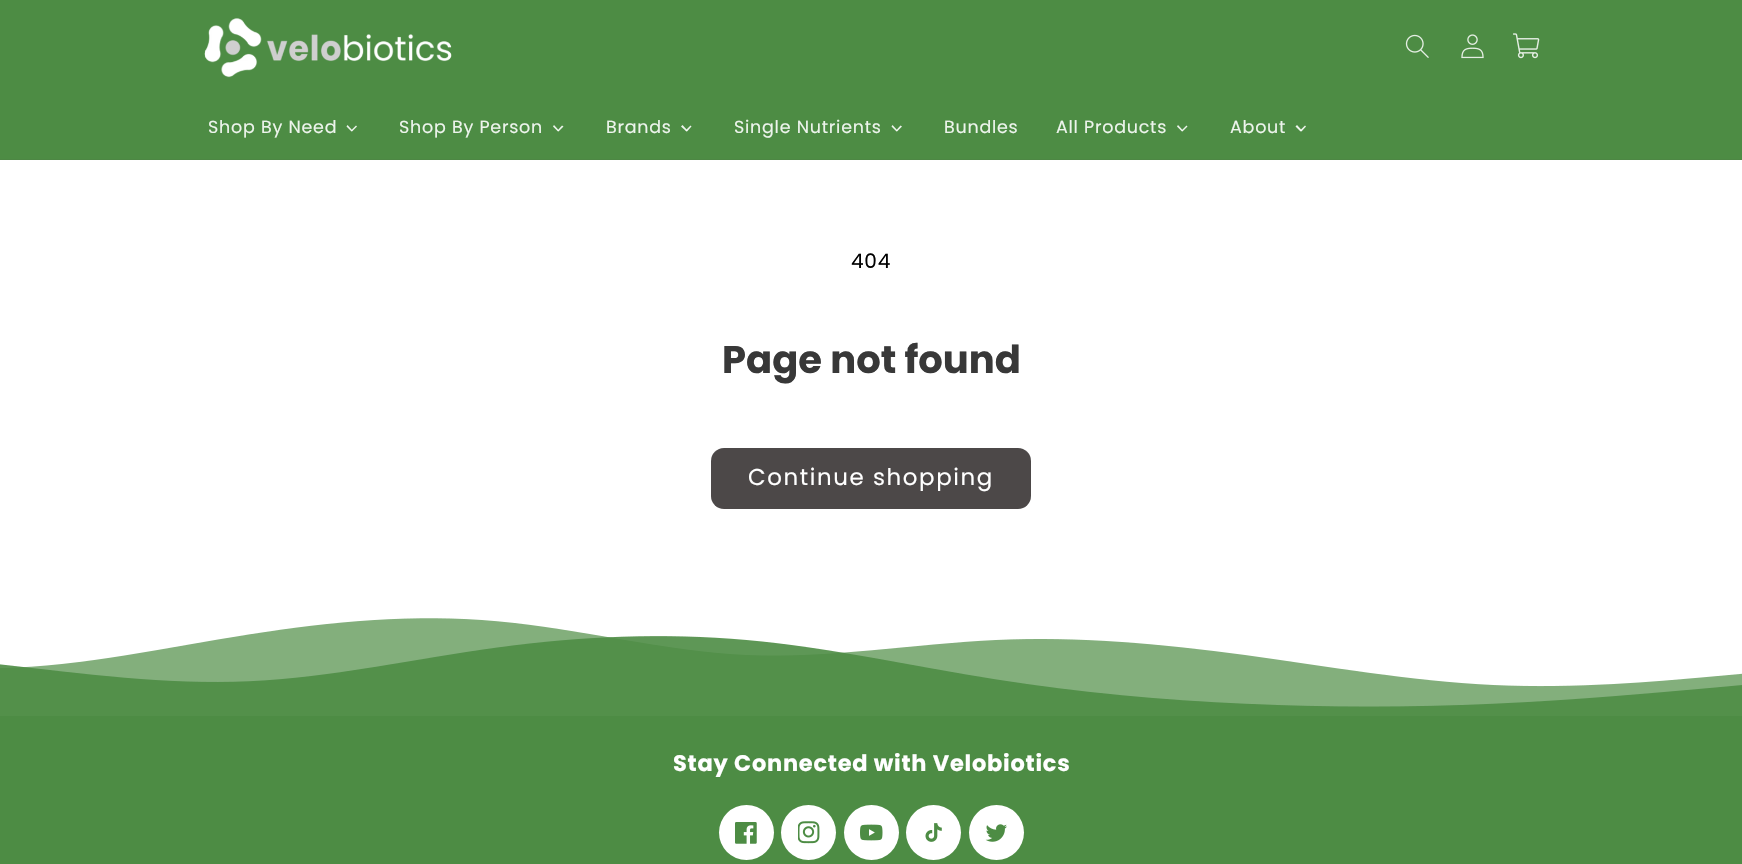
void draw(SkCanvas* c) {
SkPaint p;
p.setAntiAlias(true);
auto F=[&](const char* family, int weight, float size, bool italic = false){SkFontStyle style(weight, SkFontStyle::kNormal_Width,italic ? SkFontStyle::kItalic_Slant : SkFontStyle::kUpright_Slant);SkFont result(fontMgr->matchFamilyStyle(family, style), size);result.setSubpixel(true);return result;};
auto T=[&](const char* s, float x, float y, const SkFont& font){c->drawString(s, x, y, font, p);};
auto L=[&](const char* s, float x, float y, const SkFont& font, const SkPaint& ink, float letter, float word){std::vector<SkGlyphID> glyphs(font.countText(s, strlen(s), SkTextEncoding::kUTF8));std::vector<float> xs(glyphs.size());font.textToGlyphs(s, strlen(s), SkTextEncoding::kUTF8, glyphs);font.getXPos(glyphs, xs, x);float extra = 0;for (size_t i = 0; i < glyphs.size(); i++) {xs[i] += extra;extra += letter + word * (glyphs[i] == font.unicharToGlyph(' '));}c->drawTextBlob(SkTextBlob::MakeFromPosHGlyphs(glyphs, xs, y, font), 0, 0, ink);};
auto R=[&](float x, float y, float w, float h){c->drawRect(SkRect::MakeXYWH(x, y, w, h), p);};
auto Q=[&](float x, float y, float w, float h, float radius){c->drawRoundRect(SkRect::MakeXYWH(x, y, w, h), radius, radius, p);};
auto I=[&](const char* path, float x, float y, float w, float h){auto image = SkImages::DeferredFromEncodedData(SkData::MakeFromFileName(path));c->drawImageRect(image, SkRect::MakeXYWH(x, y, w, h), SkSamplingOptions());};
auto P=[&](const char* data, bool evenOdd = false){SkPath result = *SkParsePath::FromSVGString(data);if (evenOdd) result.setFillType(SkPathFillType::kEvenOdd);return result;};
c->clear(0xffffffff);
p.setColor(0xff4d8c44);
R(0,0,1742,159);
p.setColor(0xff4d8744);
R(0,159,1742,1);
I("1.png",204,18,248,60);
I("2.png",1405,34,24,24);
I("3.png",1461,34,23,25);
I("4.png",1513,33,27,26);
auto f1 = F("Poppins",400,17.5);
p.setColor(0xffedf4ec);
L("Shop By Need",208,133,f1,p,.75,0);
c->drawPath(P("M356 125.5l1 1l-5 5l-1-1z"),p);
p.setColor(0xe6ffffff);
c->drawPath(P("M347.5 125l5 5.5l-1 1l-5-5z"),p);
p.setColor(0xffedf4ec);
L("Shop By Person",399,133,f1,p,.75,0);
c->drawPath(P("M562 125.5l1.5 1l-5 5l-1-1z"),p);
p.setColor(0xe6ffffff);
c->drawPath(P("M554 125l5 5.5l-1 1l-5-5z"),p);
p.setColor(0xffedf4ec);
L("Brands",606,133,f1,p,.75,0);
c->drawPath(P("M690.5 125.5l1 1l-4.5 5l-1.5-1z"),p);
p.setColor(0xe6ffffff);
c->drawPath(P("M682.5 125l5 5.5l-1 1l-5.5-5z"),p);
p.setColor(0xffedf4ec);
L("Single Nutrients",734,133,f1,p,.75,0);
c->drawPath(P("M900.5 125.5l1.5 1l-5 5l-1-1z"),p);
p.setColor(0xe6ffffff);
c->drawPath(P("M892.5 125l5 5.5l-1 1l-5-5z"),p);
p.setColor(0xffedf4ec);
L("Bundles",944,133,f1,p,.75,0);
L("All Products",1056,133,f1,p,.75,0);
c->drawPath(P("M1186.5 125.5l1 1l-5 5l-1-1z"),p);
p.setColor(0xe6ffffff);
c->drawPath(P("M1178 125l5 5.5l-1 1l-5-5z"),p);
p.setColor(0xffedf4ec);
L("About",1230,133,f1,p,.75,0);
c->drawPath(P("M1305 125.5l1 1l-4.5 5l-1.5-1z"),p);
p.setColor(0xe6ffffff);
c->drawPath(P("M1297 125l5 5.5l-1.5 1l-5-5z"),p);
auto f2 = F("Poppins",400,20);
p.setColor(0xff000000);
L("404",851,268,f2,p,.75,0);
auto f3 = F("Poppins",700,38.5);
p.setColor(0xff383838);
T("Page not found",722,373,f3);
p.setColor(0xff4c4848);
Q(711,448,320,61,13);
auto f4 = F("Poppins",400,22.9);
p.setColor(0xffffffff);
L("Continue shopping",748,485,f4,p,1.6,0);
I("5.png",0,618,1742,98);
p.setColor(0xff4d8c44);
R(0,716,1742,148);
auto f5 = F("Poppins",700,22.5);
p.setColor(0xffffffff);
L("Stay Connected with Velobiotics",673,771,f5,p,.75,0);
c->drawCircle(746.5,832.5,27.5,p);
I("6.png",735,822,22,22);
c->drawCircle(808.5,832.5,27.5,p);
I("7.png",798,821,22,23);
c->drawCircle(871.5,832.5,27.5,p);
I("8.png",860,824,23,17);
c->drawCircle(933.5,832.5,27.5,p);
I("9.png",925,823,17,19);
c->drawCircle(996.5,832.5,27.5,p);
I("10.png",985,824,22,18);
}
